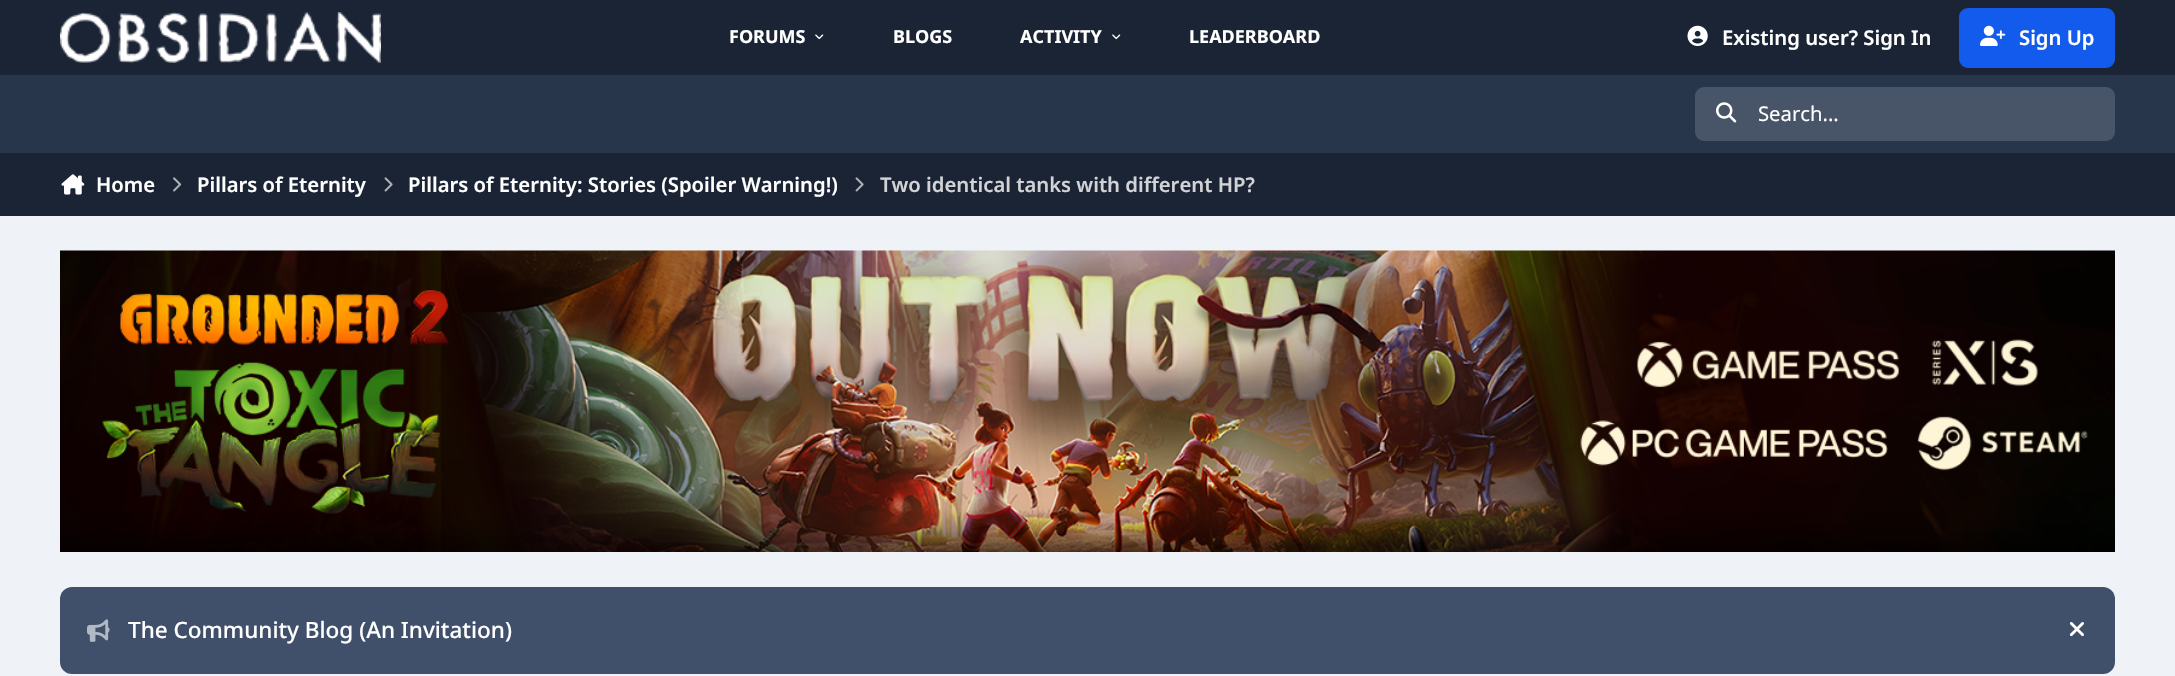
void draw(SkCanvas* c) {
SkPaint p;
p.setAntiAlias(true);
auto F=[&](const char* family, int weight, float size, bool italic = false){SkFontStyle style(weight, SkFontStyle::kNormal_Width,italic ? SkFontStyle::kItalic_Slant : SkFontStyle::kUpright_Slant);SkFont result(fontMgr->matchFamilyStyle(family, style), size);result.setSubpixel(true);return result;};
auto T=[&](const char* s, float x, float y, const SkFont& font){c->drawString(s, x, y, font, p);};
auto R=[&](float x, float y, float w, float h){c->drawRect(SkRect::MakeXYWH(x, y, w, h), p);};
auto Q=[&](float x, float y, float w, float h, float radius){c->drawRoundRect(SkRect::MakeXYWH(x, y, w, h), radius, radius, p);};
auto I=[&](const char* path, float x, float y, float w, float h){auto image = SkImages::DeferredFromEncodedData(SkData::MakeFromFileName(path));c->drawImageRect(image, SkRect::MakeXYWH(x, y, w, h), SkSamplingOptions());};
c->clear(0xffeff2f7);
p.setColor(0xff1b2434);
R(0,0,2175,75);
I("1.png",60,12,321,51);
auto f1 = F("Noto Sans",700,18);
p.setColor(0xffffffff);
T("FORUMS",729,43,f1);
I("2.png",815,34,9,6);
T("BLOGS",893,43,f1);
T("ACTIVITY",1020,43,f1);
I("2.png",1112,34,9,6);
T("LEADERBOARD",1189,43,f1);
I("3.png",1687,25,21,21);
auto f2 = F("Noto Sans",600,20.25);
T("Existing user? Sign In",1722,45,f2);
p.setColor(0xff135bec);
Q(1959,8,156,60,9);
I("4.png",1980,25,26,21);
p.setColor(0xffffffff);
T("Sign Up",2019,45,f2);
p.setColor(0xff28364c);
R(0,75,2175,78);
p.setColor(0xff485467);
Q(1695,87,420,54,9);
I("5.png",1716,102,21,21);
auto f3 = F("Noto Sans",400,20.25);
p.setColor(0xffffffff);
T("Search...",1758,121,f3);
p.setColor(0xff1b2434);
R(0,153,2175,63);
I("6.png",61,174,24,21);
p.setColor(0xffffffff);
T("Home",96,192,f2);
I("7.png",173,177,9,15);
T("Pillars of Eternity",197,192,f2);
I("8.png",384,177,9,15);
T("Pillars of Eternity: Stories (Spoiler Warning!)",408,192,f2);
I("8.png",855,177,9,15);
p.setColor(0xffd1d3d6);
T("Two identical tanks with different HP?",880,192,f2);
I("9.png",60,250,2055,302);
p.setColor(0xff40506b);
Q(60,587,2055,87,12);
I("10.png",87,619,23,23);
auto f4 = F("Noto Sans",500,22.5);
p.setColor(0xffffffff);
T("The Community Blog (An Invitation)",128,638,f4);
I("11.png",2069,622,15,15);
}
